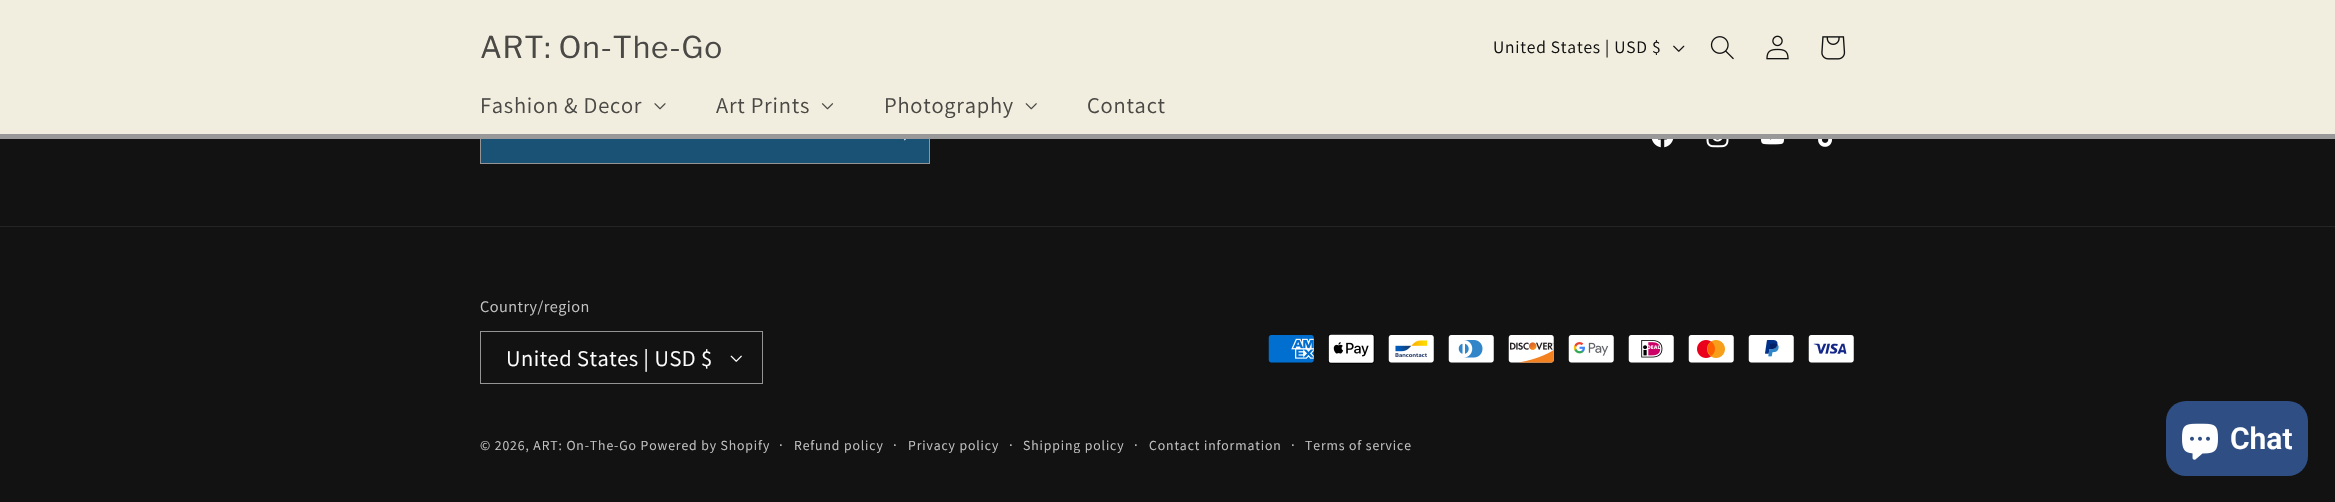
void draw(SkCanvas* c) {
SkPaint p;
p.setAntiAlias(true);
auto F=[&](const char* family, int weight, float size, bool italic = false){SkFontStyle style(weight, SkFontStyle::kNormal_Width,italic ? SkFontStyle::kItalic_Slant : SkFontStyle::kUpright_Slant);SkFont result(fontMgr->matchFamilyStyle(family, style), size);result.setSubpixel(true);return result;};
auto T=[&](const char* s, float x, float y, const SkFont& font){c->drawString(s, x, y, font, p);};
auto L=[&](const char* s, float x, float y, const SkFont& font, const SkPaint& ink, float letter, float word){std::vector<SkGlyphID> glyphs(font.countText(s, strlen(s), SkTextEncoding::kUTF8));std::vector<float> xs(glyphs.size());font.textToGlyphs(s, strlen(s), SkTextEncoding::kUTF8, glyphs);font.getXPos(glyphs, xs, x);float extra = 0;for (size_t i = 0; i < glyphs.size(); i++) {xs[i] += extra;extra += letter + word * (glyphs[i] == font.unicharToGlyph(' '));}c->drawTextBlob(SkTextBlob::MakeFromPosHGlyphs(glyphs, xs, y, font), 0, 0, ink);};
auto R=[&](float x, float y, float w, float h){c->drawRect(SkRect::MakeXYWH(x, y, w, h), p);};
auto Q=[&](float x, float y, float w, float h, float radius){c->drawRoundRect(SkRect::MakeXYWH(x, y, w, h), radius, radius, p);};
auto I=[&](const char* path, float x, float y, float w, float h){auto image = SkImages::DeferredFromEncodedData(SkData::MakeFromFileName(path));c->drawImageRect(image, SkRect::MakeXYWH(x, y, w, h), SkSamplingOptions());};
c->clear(0xff121212);
p.setColor(0xff1a5276);
R(481,139,448,24);
p.setStroke(true);
p.setStrokeWidth(1);
p.setColor(0xff949494);
c->drawRect(SkRect::MakeXYWH(480.5,105.5,449,58),p);
p.setStroke(false);
p.setColor(0xfff2eedf);
R(0,0,2335,134);
p.setColor(0xff999999);
R(0,134,2335,5);
auto f1 = F("Libre Franklin",400,30);
p.setColor(0xff4a4945);
L("ART: On-The-Go",480,58,f1,p,.75,0);
auto f2 = F("Assistant",400,17.5);
p.setColor(0xff121212);
L("United States | USD $",1493,53,f2,p,.75,0);
I("1.png",1673,45,12,7);
I("2.png",1710,36,24,24);
I("3.png",1766,35,23,25);
I("4.png",1821,36,25,24);
auto f3 = F("Assistant",400,22.5);
p.setColor(0xff4a4945);
L("Fashion & Decor",480,113,f3,p,.75,0);
I("5.png",654,103,12,7);
L("Art Prints",716,113,f3,p,.75,0);
I("6.png",821,103,13,7);
L("Photography",884,113,f3,p,.75,0);
I("7.png",1025,103,12,7);
L("Contact",1087,113,f3,p,.75,0);
I("8.png",903,139,3,2);
I("9.png",1651,139,23,9);
I("10.png",1706,139,23,9);
I("11.png",1760,139,25,6);
I("12.png",1818,139,14,8);
p.setColor(0xff252525);
R(0,226,2335,1);
auto f4 = F("Assistant",400,16.25);
p.setColor(0xffc4c4c4);
L("Country/region",480,312,f4,p,.5,0);
I("13.png",730,355,12,7);
p.setStroke(true);
p.setColor(0xff949494);
c->drawRect(SkRect::MakeXYWH(480.5,331.5,282,52),p);
p.setStroke(false);
p.setColor(0xffffffff);
L("United States | USD $",506,366,f3,p,.5,0);
I("14.png",1268,335,46,28);
I("15.png",1328,334,47,30);
I("16.png",1388,335,46,28);
I("17.png",1448,335,46,28);
I("18.png",1508,335,46,28);
I("19.png",1568,335,46,28);
I("20.png",1628,335,46,28);
I("21.png",1688,335,46,28);
I("22.png",1748,335,46,28);
I("23.png",1808,335,46,28);
auto f5 = F("Assistant",400,13.75);
p.setColor(0xffc4c4c4);
L("© 2026, ART: On-The-Go Powered by Shopify",480,450,f5,p,.9,0);
auto f6 = F("Assistant",400,15);
L("·",779,450,f6,p,.9,0);
L("Refund policy",794,450,f5,p,.9,0);
L("·",893,450,f6,p,.9,0);
L("Privacy policy",908,450,f5,p,.9,0);
L("·",1009,450,f6,p,.9,0);
L("Shipping policy",1023,450,f5,p,.9,0);
L("·",1134,450,f6,p,.9,0);
L("Contact information",1149,450,f5,p,.9,0);
L("·",1291,450,f6,p,.9,0);
L("Terms of service",1305,450,f5,p,.9,0);
p.setColor(0xff2e4e84);
Q(2166,401,142,75,20);
I("24.png",2182,423,36,37);
auto f7 = F("Roboto",600,30);
p.setColor(0xffffffff);
T("Chat",2230,449,f7);
}
